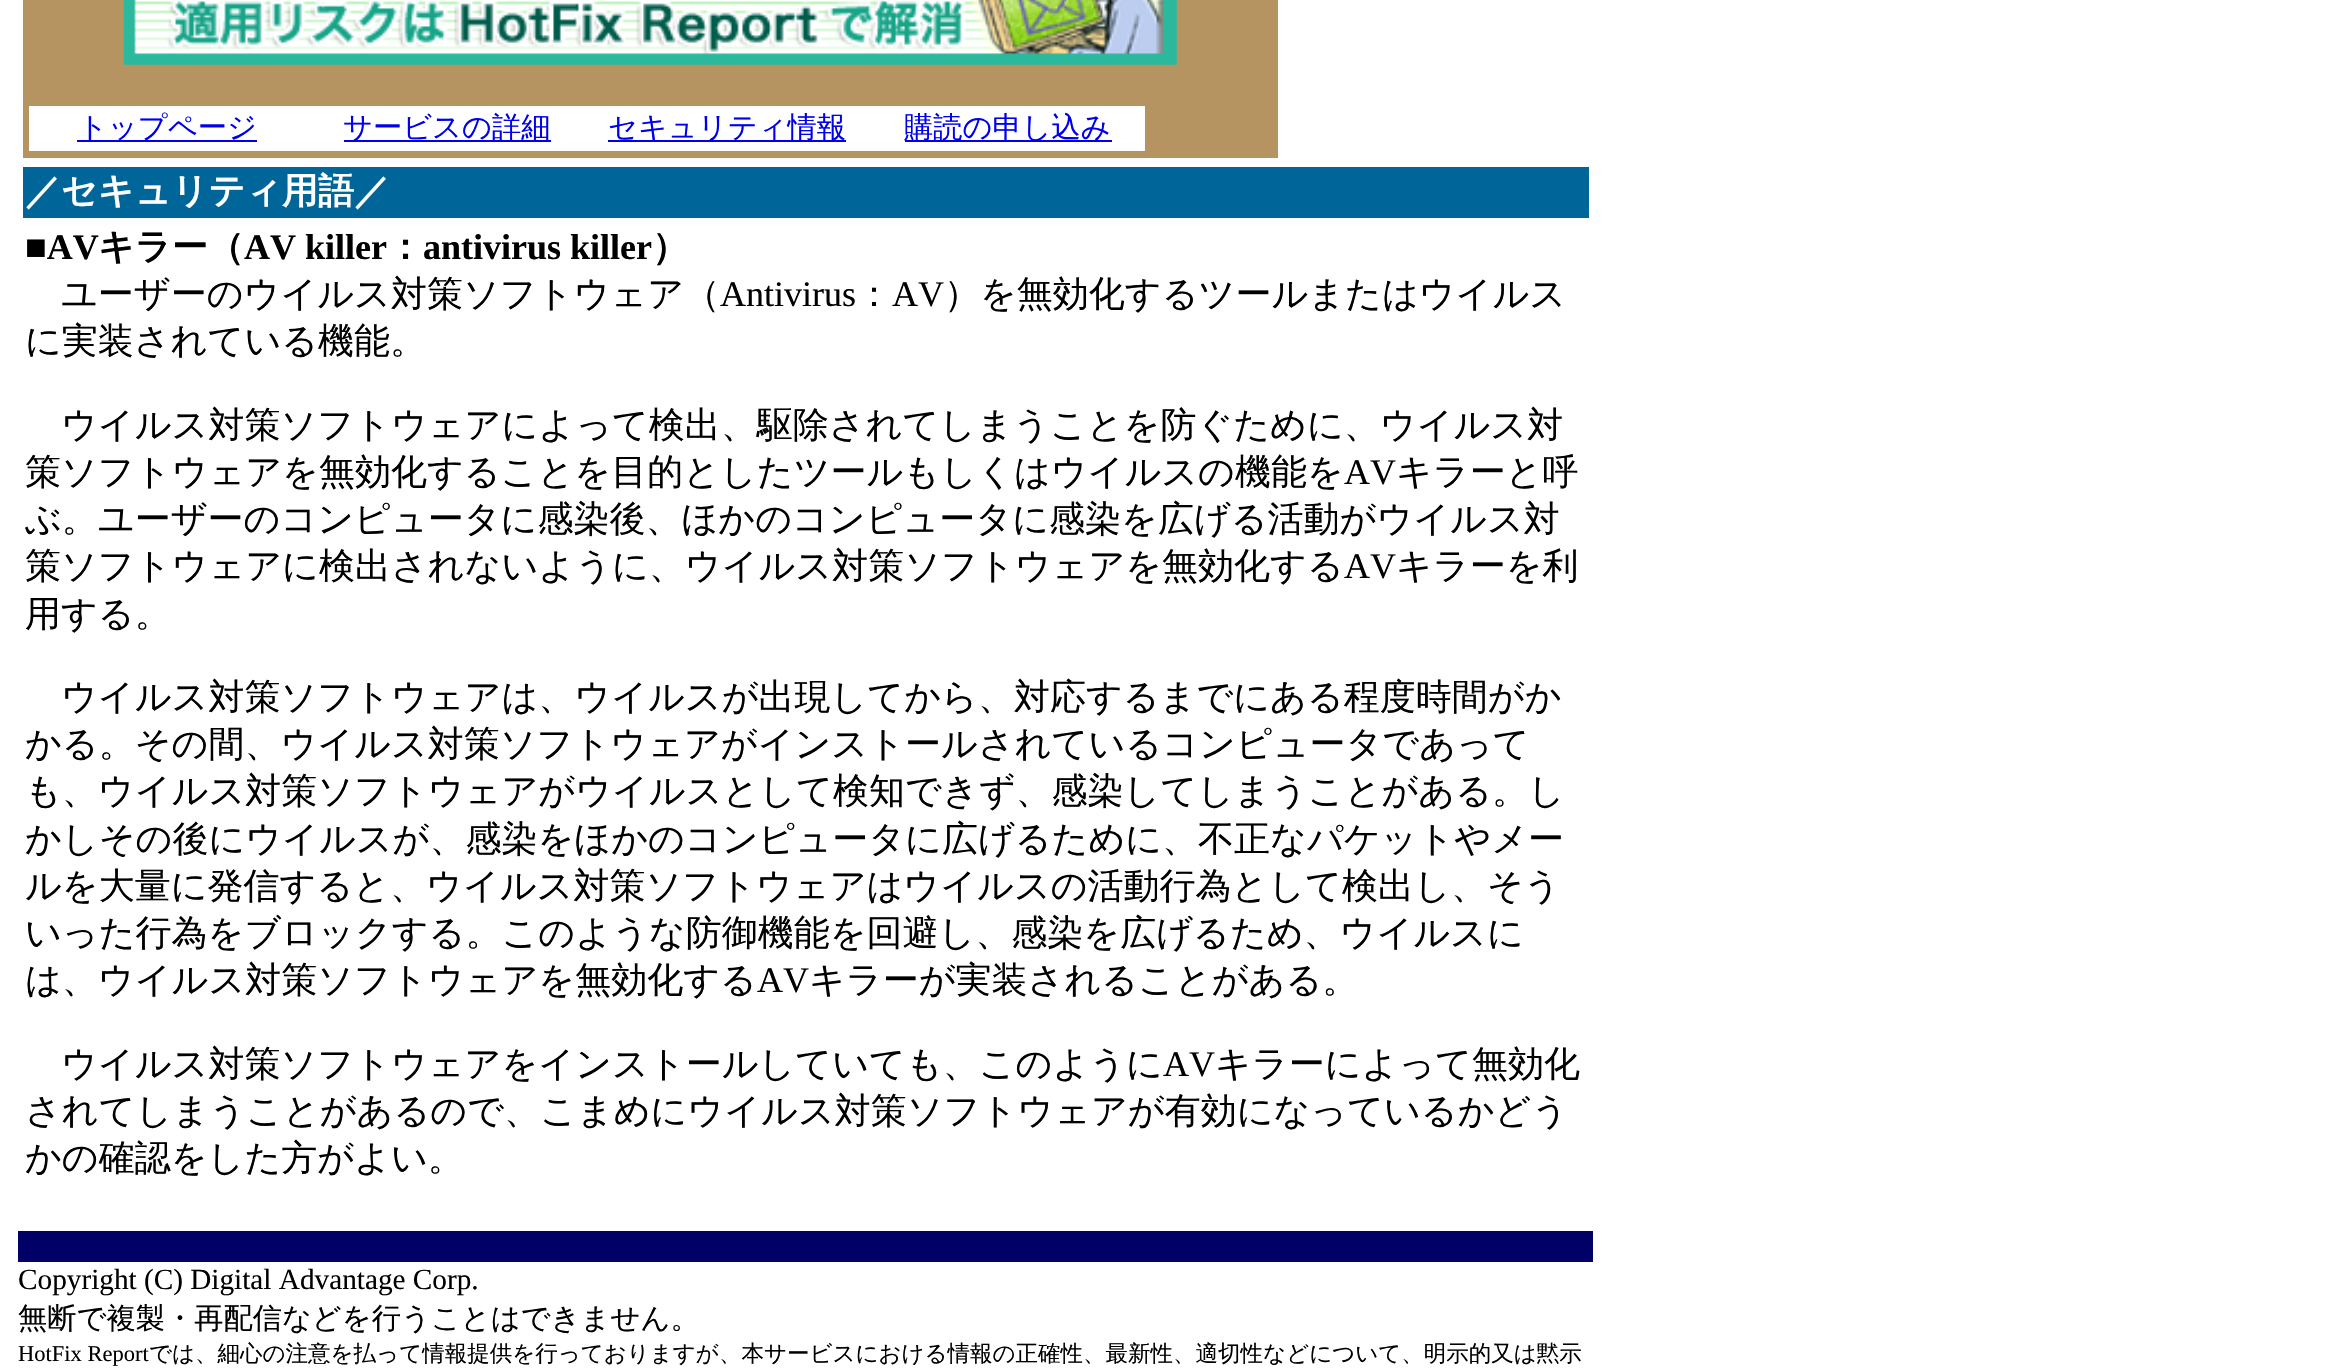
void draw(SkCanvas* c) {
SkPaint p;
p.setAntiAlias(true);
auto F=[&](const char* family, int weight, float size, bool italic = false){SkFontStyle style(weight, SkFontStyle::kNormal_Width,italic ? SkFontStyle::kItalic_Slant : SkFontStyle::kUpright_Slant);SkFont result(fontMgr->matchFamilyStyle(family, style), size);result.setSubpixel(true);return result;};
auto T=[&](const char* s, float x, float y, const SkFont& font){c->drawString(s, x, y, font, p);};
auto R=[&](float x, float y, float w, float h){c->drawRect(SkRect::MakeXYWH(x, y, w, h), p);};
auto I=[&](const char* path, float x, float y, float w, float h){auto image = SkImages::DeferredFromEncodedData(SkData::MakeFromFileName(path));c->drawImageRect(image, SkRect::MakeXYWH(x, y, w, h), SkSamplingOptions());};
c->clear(0xffffffff);
p.setColor(0xffb59461);
R(23,0,1255,158);
I("1.png",123,0,1054,65);
p.setColor(0xffffffff);
R(29,106,1116,45);
p.setColor(0xff0000ee);
R(77,140,180,2);
auto f1 = F("WenQuanYi Zen Hei",500,29.25);
T("トップページ",78,137,f1);
R(344,140,207,2);
T("サービスの詳細",343,137,f1);
R(608,140,238,2);
T("セキュリティ情報",608,137,f1);
R(905,140,207,2);
T("購読の申し込み",904,137,f1);
p.setColor(0xff006699);
R(23,167,1566,51);
auto f2 = F("WenQuanYi Zen Hei",700,36);
p.setColor(0xffffffff);
T("／セキュリティ用語／",25,203,f2);
auto f3 = F("Liberation Serif",700,36);
p.setColor(0xff000000);
T("■AV",25,259,f3);
T("キラー（",98,259,f2);
T("AV killer",244,259,f3);
T("：",387,259,f2);
T("antivirus killer",423,259,f3);
T("）",652,259,f2);
auto f4 = F("WenQuanYi Zen Hei",500,36);
T("ユーザーのウイルス対策ソフトウェア（",61,306,f4);
auto f5 = F("Liberation Serif",400,36);
T("Antivirus",720,306,f5);
T("：",856,306,f4);
T("AV",892,306,f5);
T("）を無効化するツールまたはウイルス",944,306,f4);
T("に実装されている機能。",25,353,f4);
T("ウイルス対策ソフトウェアによって検出、駆除されてしまうことを防ぐために、ウイルス対",61,437,f4);
T("策ソフトウェアを無効化することを目的としたツールもしくはウイルスの機能を",25,484,f4);
T("AV",1344,484,f5);
T("キラーと呼",1396,484,f4);
T("ぶ。ユーザーのコンピュータに感染後、ほかのコンピュータに感染を広げる活動がウイルス対",25,531,f4);
T("策ソフトウェアに検出されないように、ウイルス対策ソフトウェアを無効化する",25,578,f4);
T("AV",1344,578,f5);
T("キラーを利",1396,578,f4);
T("用する。",25,626,f4);
T("ウイルス対策ソフトウェアは、ウイルスが出現してから、対応するまでにある程度時間がか",61,709,f4);
T("かる。その間、ウイルス対策ソフトウェアがインストールされているコンピュータであって",25,756,f4);
T("も、ウイルス対策ソフトウェアがウイルスとして検知できず、感染してしまうことがある。し",25,803,f4);
T("かしその後にウイルスが、感染をほかのコンピュータに広げるために、不正なパケットやメー",25,851,f4);
T("ルを大量に発信すると、ウイルス対策ソフトウェアはウイルスの活動行為として検出し、そう",25,898,f4);
T("いった行為をブロックする。このような防御機能を回避し、感染を広げるため、ウイルスに",25,945,f4);
T("は、ウイルス対策ソフトウェアを無効化する",25,992,f4);
T("AV",757,992,f5);
T("キラーが実装されることがある。",809,992,f4);
T("ウイルス対策ソフトウェアをインストールしていても、このように",61,1076,f4);
T("AV",1163,1076,f5);
T("キラーによって無効化",1215,1076,f4);
T("されてしまうことがあるので、こまめにウイルス対策ソフトウェアが有効になっているかどう",25,1123,f4);
T("かの確認をした方がよい。",25,1170,f4);
p.setColor(0xff000066);
R(18,1231,1575,31);
auto f6 = F("Liberation Serif",400,29.25);
p.setColor(0xff000000);
T("Copyright (C) Digital Advantage Corp.",18,1289,f6);
T("無断で複製・再配信などを行うことはできません。",18,1328,f1);
auto f7 = F("Liberation Serif",400,22.5);
T("HotFix Report",18,1361,f7);
auto f8 = F("WenQuanYi Zen Hei",500,22.5);
T("では、細心の注意を払って情報提供を行っておりますが、本サービスにおける情報の正確性、最新性、適切性などについて、明示的又は黙示",149,1361,f8);
}
